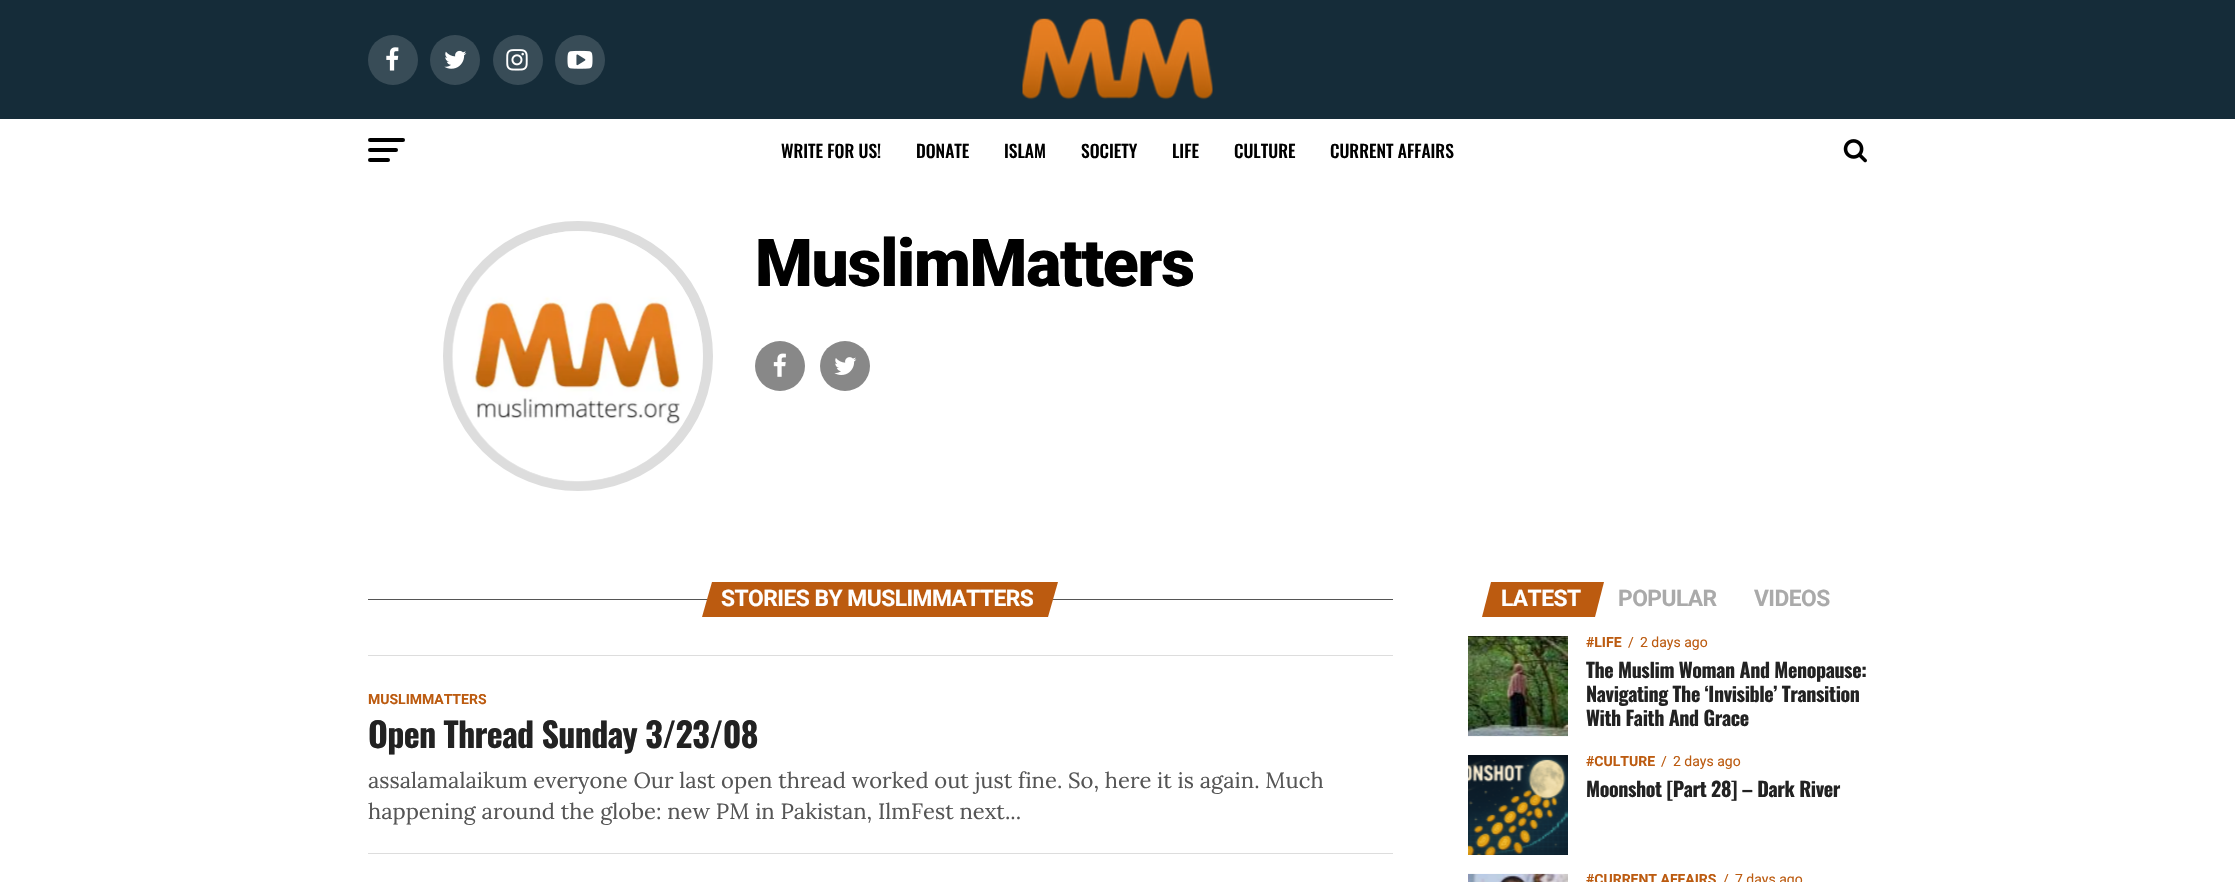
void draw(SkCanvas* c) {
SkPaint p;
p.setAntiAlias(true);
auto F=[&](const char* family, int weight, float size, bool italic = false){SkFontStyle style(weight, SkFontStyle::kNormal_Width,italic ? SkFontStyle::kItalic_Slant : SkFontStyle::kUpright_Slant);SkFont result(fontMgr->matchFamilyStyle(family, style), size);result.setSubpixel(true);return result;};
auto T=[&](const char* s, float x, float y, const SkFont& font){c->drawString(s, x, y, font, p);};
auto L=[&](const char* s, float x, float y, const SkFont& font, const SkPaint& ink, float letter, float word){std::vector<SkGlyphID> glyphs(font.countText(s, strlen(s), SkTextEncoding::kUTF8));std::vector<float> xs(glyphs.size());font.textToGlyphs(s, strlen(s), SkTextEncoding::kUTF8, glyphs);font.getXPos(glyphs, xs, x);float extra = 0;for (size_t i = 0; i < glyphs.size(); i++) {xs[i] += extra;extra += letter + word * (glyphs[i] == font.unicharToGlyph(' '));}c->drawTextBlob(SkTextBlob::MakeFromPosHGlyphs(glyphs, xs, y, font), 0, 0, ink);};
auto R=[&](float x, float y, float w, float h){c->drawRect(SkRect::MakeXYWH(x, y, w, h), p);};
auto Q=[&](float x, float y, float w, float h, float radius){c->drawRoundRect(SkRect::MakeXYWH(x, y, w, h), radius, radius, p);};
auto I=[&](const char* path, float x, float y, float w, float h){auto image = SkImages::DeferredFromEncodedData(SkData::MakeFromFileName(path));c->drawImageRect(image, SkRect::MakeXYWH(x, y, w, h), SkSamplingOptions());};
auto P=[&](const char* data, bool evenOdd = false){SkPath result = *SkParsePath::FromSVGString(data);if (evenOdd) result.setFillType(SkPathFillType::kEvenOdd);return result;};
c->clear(0xffffffff);
p.setColor(0xff152c39);
R(0,0,2235,119);
p.setColor(0xff384c57);
c->drawCircle(393,60,25,p);
I("1.png",386,47,13,24);
c->drawCircle(455,60,25,p);
I("2.png",444,50,23,19);
c->drawCircle(518,60,25,p);
I("3.png",506,49,22,22);
c->drawCircle(580,60,25,p);
I("4.png",567,50,26,19);
I("5.png",1022,18,191,82);
p.setColor(0xff000000);
Q(368,138,37,4,2);
Q(368,148,30,4,2);
Q(368,158,22,4,2);
auto f1 = F("Oswald",500,17.5);
T("WRITE FOR US!",781,158,f1);
T("DONATE",916,158,f1);
T("ISLAM",1004,158,f1);
T("SOCIETY",1081,158,f1);
T("LIFE",1172,158,f1);
T("CULTURE",1234,158,f1);
T("CURRENT AFFAIRS",1330,158,f1);
I("6.png",1843,139,24,24);
p.setStroke(true);
p.setStrokeWidth(10);
p.setColor(0xffdddddd);
c->drawCircle(578,356,130,p);
I("7.png",452,231,251,251);
auto f2 = F("Roboto",900,66);
p.setStroke(false);
p.setColor(0xff000000);
L("MuslimMatters",755,286,f2,p,-1.25,0);
p.setColor(0xff888888);
c->drawCircle(780,366,25,p);
I("8.png",773,353,13,24);
c->drawCircle(845,366,25,p);
I("9.png",834,357,23,18);
p.setColor(0xff555555);
R(368,599,1025,1);
p.setColor(0xffbc5b10);
c->drawPath(P("M712 582h346l-10 35h-346z"),p);
auto f3 = F("Roboto",700,22.75);
p.setColor(0xffffffff);
L("STORIES BY MUSLIMMATTERS",721,606,f3,p,-.5,0);
p.setColor(0xffdddddd);
R(368,655,1025,1);
auto f4 = F("Roboto",700,14);
p.setColor(0xffbc5b10);
T("MUSLIMMATTERS",368,704,f4);
auto f5 = F("Oswald",700,34);
p.setColor(0xff222222);
L("Open Thread Sunday 3/23/08",368,748,f5,p,-.7,0);
auto f6 = F("Lora",400,22);
p.setColor(0xff555555);
T("assalamalaikum everyone Our last open thread worked out just fine. So, here it is again. Much",368,788,f6);
T("happening around the globe: new PM in Pakistan, IlmFest next...",368,819,f6);
p.setColor(0xffdddddd);
R(368,853,1025,1);
p.setColor(0xffbc5b10);
c->drawPath(P("M1491 582h113l-9 35h-113z"),p);
p.setColor(0xffffffff);
L("LATEST",1501,606,f3,p,-.5,0);
p.setColor(0xffaaaaaa);
L("POPULAR",1618,606,f3,p,-.5,0);
L("VIDEOS",1754,606,f3,p,-.5,0);
p.setColor(0xff000000);
R(1468,636,100,1);
I("10.png",1468,636,100,101);
p.setColor(0xffbc5b10);
T("#LIFE",1586,647,f4);
auto f7 = F("Roboto",400,14);
T("/",1628,647,f7);
T("2 days ago",1640,647,f7);
auto f8 = F("Oswald",700,20);
p.setColor(0xff222222);
L("The Muslim Woman And Menopause:",1586,678,f8,p,-.4,0);
L("Navigating The ‘Invisible’ Transition",1586,702,f8,p,-.4,0);
L("With Faith And Grace",1586,726,f8,p,-.4,0);
I("11.png",1468,755,100,100);
p.setColor(0xffbc5b10);
T("#CULTURE",1586,766,f4);
T("/",1661,766,f7);
T("2 days ago",1673,766,f7);
p.setColor(0xff222222);
L("Moonshot [Part 28] – Dark River",1586,797,f8,p,-.4,0);
I("12.png",1468,873,100,9);
p.setColor(0xffbc5b10);
T("#CURRENT AFFAIRS",1586,884,f4);
T("/",1723,884,f7);
T("7 days ago",1735,884,f7);
}
